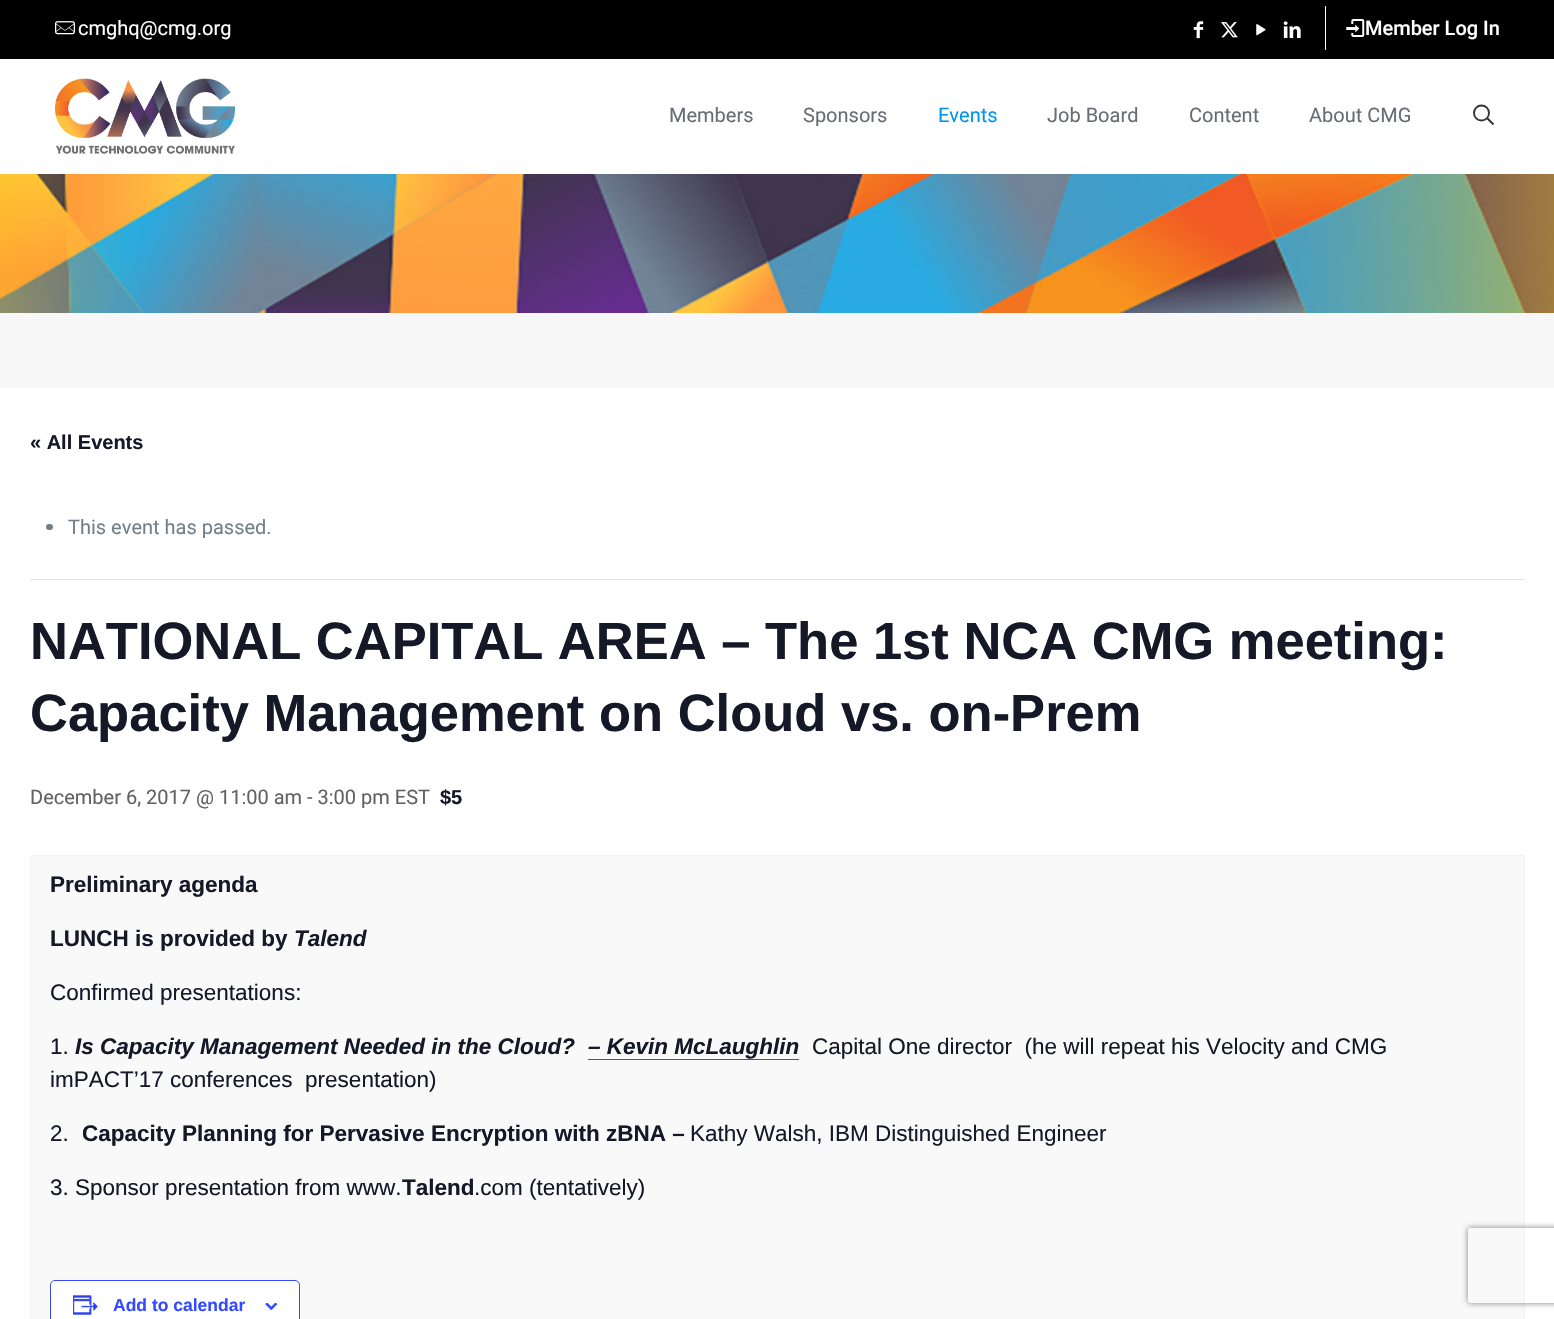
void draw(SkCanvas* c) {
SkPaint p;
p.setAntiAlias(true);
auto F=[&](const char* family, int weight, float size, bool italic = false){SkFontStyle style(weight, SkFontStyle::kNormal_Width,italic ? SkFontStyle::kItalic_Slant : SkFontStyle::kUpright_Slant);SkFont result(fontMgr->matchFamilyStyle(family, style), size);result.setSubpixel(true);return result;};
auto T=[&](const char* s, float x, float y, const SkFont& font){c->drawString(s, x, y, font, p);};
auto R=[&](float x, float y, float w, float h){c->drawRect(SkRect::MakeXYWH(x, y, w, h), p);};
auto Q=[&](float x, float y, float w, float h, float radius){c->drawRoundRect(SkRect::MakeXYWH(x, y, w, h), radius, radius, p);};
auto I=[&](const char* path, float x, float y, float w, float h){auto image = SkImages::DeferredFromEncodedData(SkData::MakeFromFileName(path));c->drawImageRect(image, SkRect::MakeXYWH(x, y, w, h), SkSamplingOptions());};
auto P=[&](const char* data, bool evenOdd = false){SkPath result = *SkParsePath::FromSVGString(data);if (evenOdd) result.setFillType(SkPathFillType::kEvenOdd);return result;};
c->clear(0xffffffff);
I("1.png",0,174,1554,139);
p.setColor(0xff000000);
R(0,0,1554,59);
I("2.png",55,21,20,14);
auto f1 = F("Roboto",400,20);
p.setColor(0xffffffff);
T("cmghq@cmg.org",78,35,f1);
I("3.png",1193,21,11,18);
I("4.png",1221,22,17,16);
I("5.png",1256,24,10,12);
I("6.png",1283,21,18,17);
R(1325,6,1,44);
I("7.png",1346,19,19,18);
auto f2 = F("Roboto",500,20);
T("Member Log In",1365,35,f2);
I("8.png",55,78,180,76);
p.setColor(0xff6a6c74);
T("Members",669,122,f1);
T("Sponsors",803,122,f1);
p.setColor(0xff0095eb);
T("Events",938,122,f1);
p.setColor(0xff6a6c74);
T("Job Board",1047,122,f1);
T("Content",1189,122,f1);
T("About CMG",1309,122,f1);
p.setStroke(true);
p.setStrokeWidth(1.9);
p.setColor(0xff333333);
c->drawCircle(1481.5,113,7.5,p);
c->drawPath(P("M1487 118l6.5 6.5"),p);
p.setStroke(false);
p.setColor(0xfff7f7f7);
R(0,313,1554,75);
auto f3 = F("Liberation Sans",700,20);
p.setColor(0xff141827);
T("« All Events",30,449,f3);
p.setColor(0xffe4e4e4);
R(30,579,1495,1);
p.setColor(0xff737e86);
Q(46,524,7,6,3);
T("This event has passed.",68,534,f1);
auto f4 = F("Liberation Sans",700,52.5);
p.setColor(0xff141827);
T("NATIONAL CAPITAL AREA – The 1st NCA CMG meeting:",30,659,f4);
T("Capacity Management on Cloud vs. on-Prem",30,731,f4);
p.setColor(0xff626262);
T("December 6, 2017 @ 11:00 am - 3:00 pm EST",30,804,f1);
p.setColor(0xff141827);
T("$5",440,804,f3);
p.setColor(0xfff9f9f9);
c->drawRoundRect(SkRect::MakeXYWH(30.5,855.5,1494,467),2,2,p);
p.setStroke(true);
p.setStrokeWidth(1);
p.setColor(0xfff2f2f2);
c->drawRoundRect(SkRect::MakeXYWH(30.5,855.5,1494,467),2,2,p);
auto f5 = F("Liberation Sans",700,22.5);
p.setStroke(false);
p.setColor(0xff141827);
T("Preliminary agenda",50,892,f5);
T("LUNCH is provided by",50,946,f5);
auto f6 = F("Liberation Sans",700,22.5,true);
T("Talend",294,946,f6);
auto f7 = F("Liberation Sans",400,22.5);
T("Confirmed presentations:",50,1000,f7);
T("1.",50,1054,f7);
T("Is Capacity Management Needed in the Cloud?",75,1054,f6);
T("– Kevin McLaughlin",588,1054,f6);
p.setColor(0xff334aff);
R(588,1059,211,1);
p.setColor(0xff141827);
T("Capital One director  (he will repeat his Velocity and CMG",812,1054,f7);
T("imPACT’17 conferences  presentation)",50,1087,f7);
T("2.",50,1141,f7);
T("Capacity Planning for Pervasive Encryption with zBNA –",82,1141,f5);
T("Kathy Walsh, IBM Distinguished Engineer",690,1141,f7);
T("3. Sponsor presentation from www.",50,1195,f7);
T("Talend",402,1195,f5);
T(".com (tentatively)",474,1195,f7);
p.setColor(0xffffffff);
c->drawRoundRect(SkRect::MakeXYWH(50.5,1280.5,249,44),4.5,4.5,p);
p.setStroke(true);
p.setColor(0xff334aff);
c->drawRoundRect(SkRect::MakeXYWH(50.5,1280.5,249,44),4.5,4.5,p);
I("9.png",73,1295,25,20);
auto f8 = F("Liberation Sans",700,17.5);
p.setStroke(false);
T("Add to calendar",113,1311,f8);
I("10.png",265,1303,13,7);
c->save();
c->clipPath(P("M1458 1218h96v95h-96zm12.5 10h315c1.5 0 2.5 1 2.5 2.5v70c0 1.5-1 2.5-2.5 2.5h-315c-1.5 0-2.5-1-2.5-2.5v-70c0-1.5 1-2.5 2.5-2.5z",true),true);
p.setColor(0xff808080);
p.setMaskFilter(SkMaskFilter::MakeBlur(kNormal_SkBlurStyle, 3));
c->drawRoundRect(SkRect::MakeXYWH(1468,1228,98,75),2.5,2.5,p);
p.setMaskFilter(nullptr);
c->restore();
}
